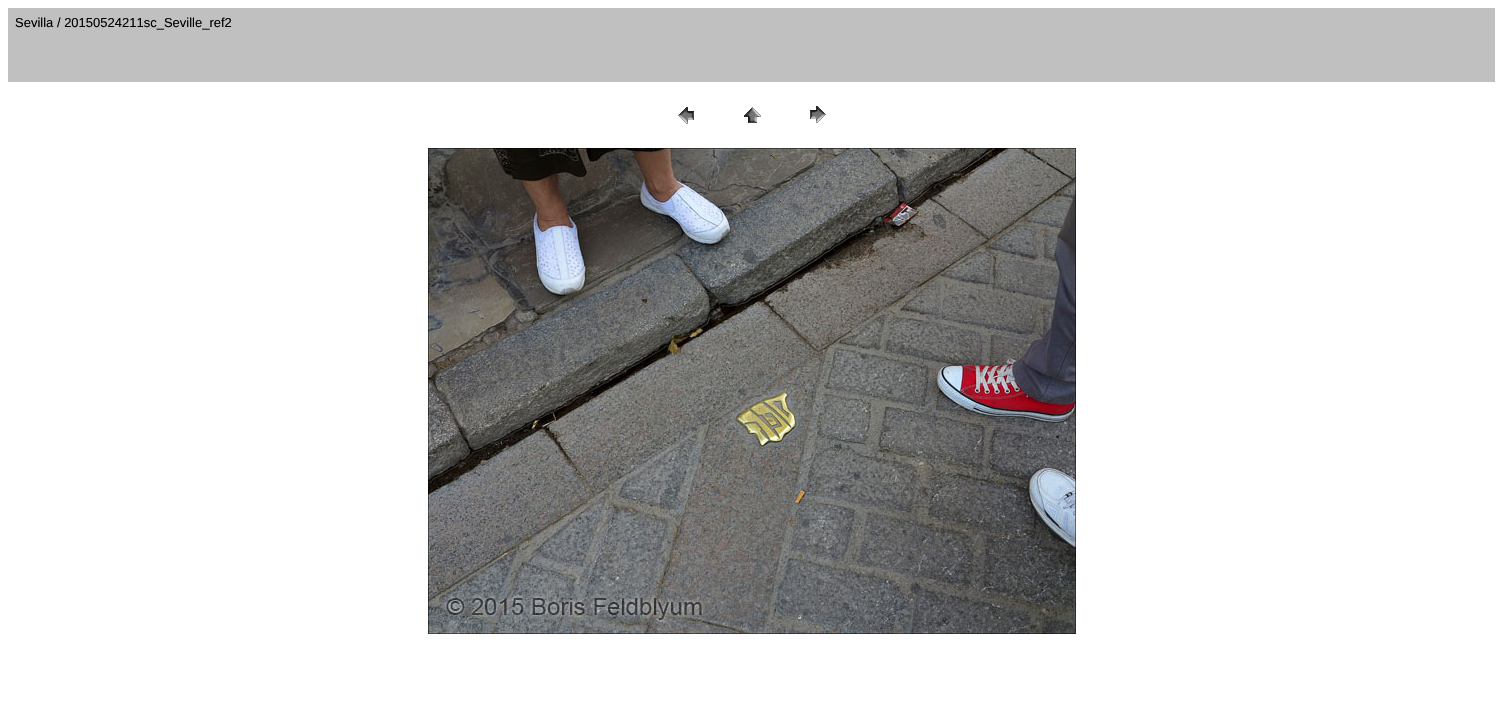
void draw(SkCanvas* c) {
SkPaint p;
p.setAntiAlias(true);
auto F=[&](const char* family, int weight, float size, bool italic = false){SkFontStyle style(weight, SkFontStyle::kNormal_Width,italic ? SkFontStyle::kItalic_Slant : SkFontStyle::kUpright_Slant);SkFont result(fontMgr->matchFamilyStyle(family, style), size);result.setSubpixel(true);return result;};
auto T=[&](const char* s, float x, float y, const SkFont& font){c->drawString(s, x, y, font, p);};
auto R=[&](float x, float y, float w, float h){c->drawRect(SkRect::MakeXYWH(x, y, w, h), p);};
auto I=[&](const char* path, float x, float y, float w, float h){auto image = SkImages::DeferredFromEncodedData(SkData::MakeFromFileName(path));c->drawImageRect(image, SkRect::MakeXYWH(x, y, w, h), SkSamplingOptions());};
c->clear(0xffffffff);
p.setColor(0xffc0c0c0);
R(8,8,1487,74);
auto f1 = F("Liberation Sans",400,13);
p.setColor(0xff000000);
T("Sevilla / 20150524211sc_Seville_ref2",15,27,f1);
I("1.png",678,107,16,17);
I("2.png",744,107,17,16);
I("3.png",810,106,16,17);
I("4.png",428,148,648,486);
}
